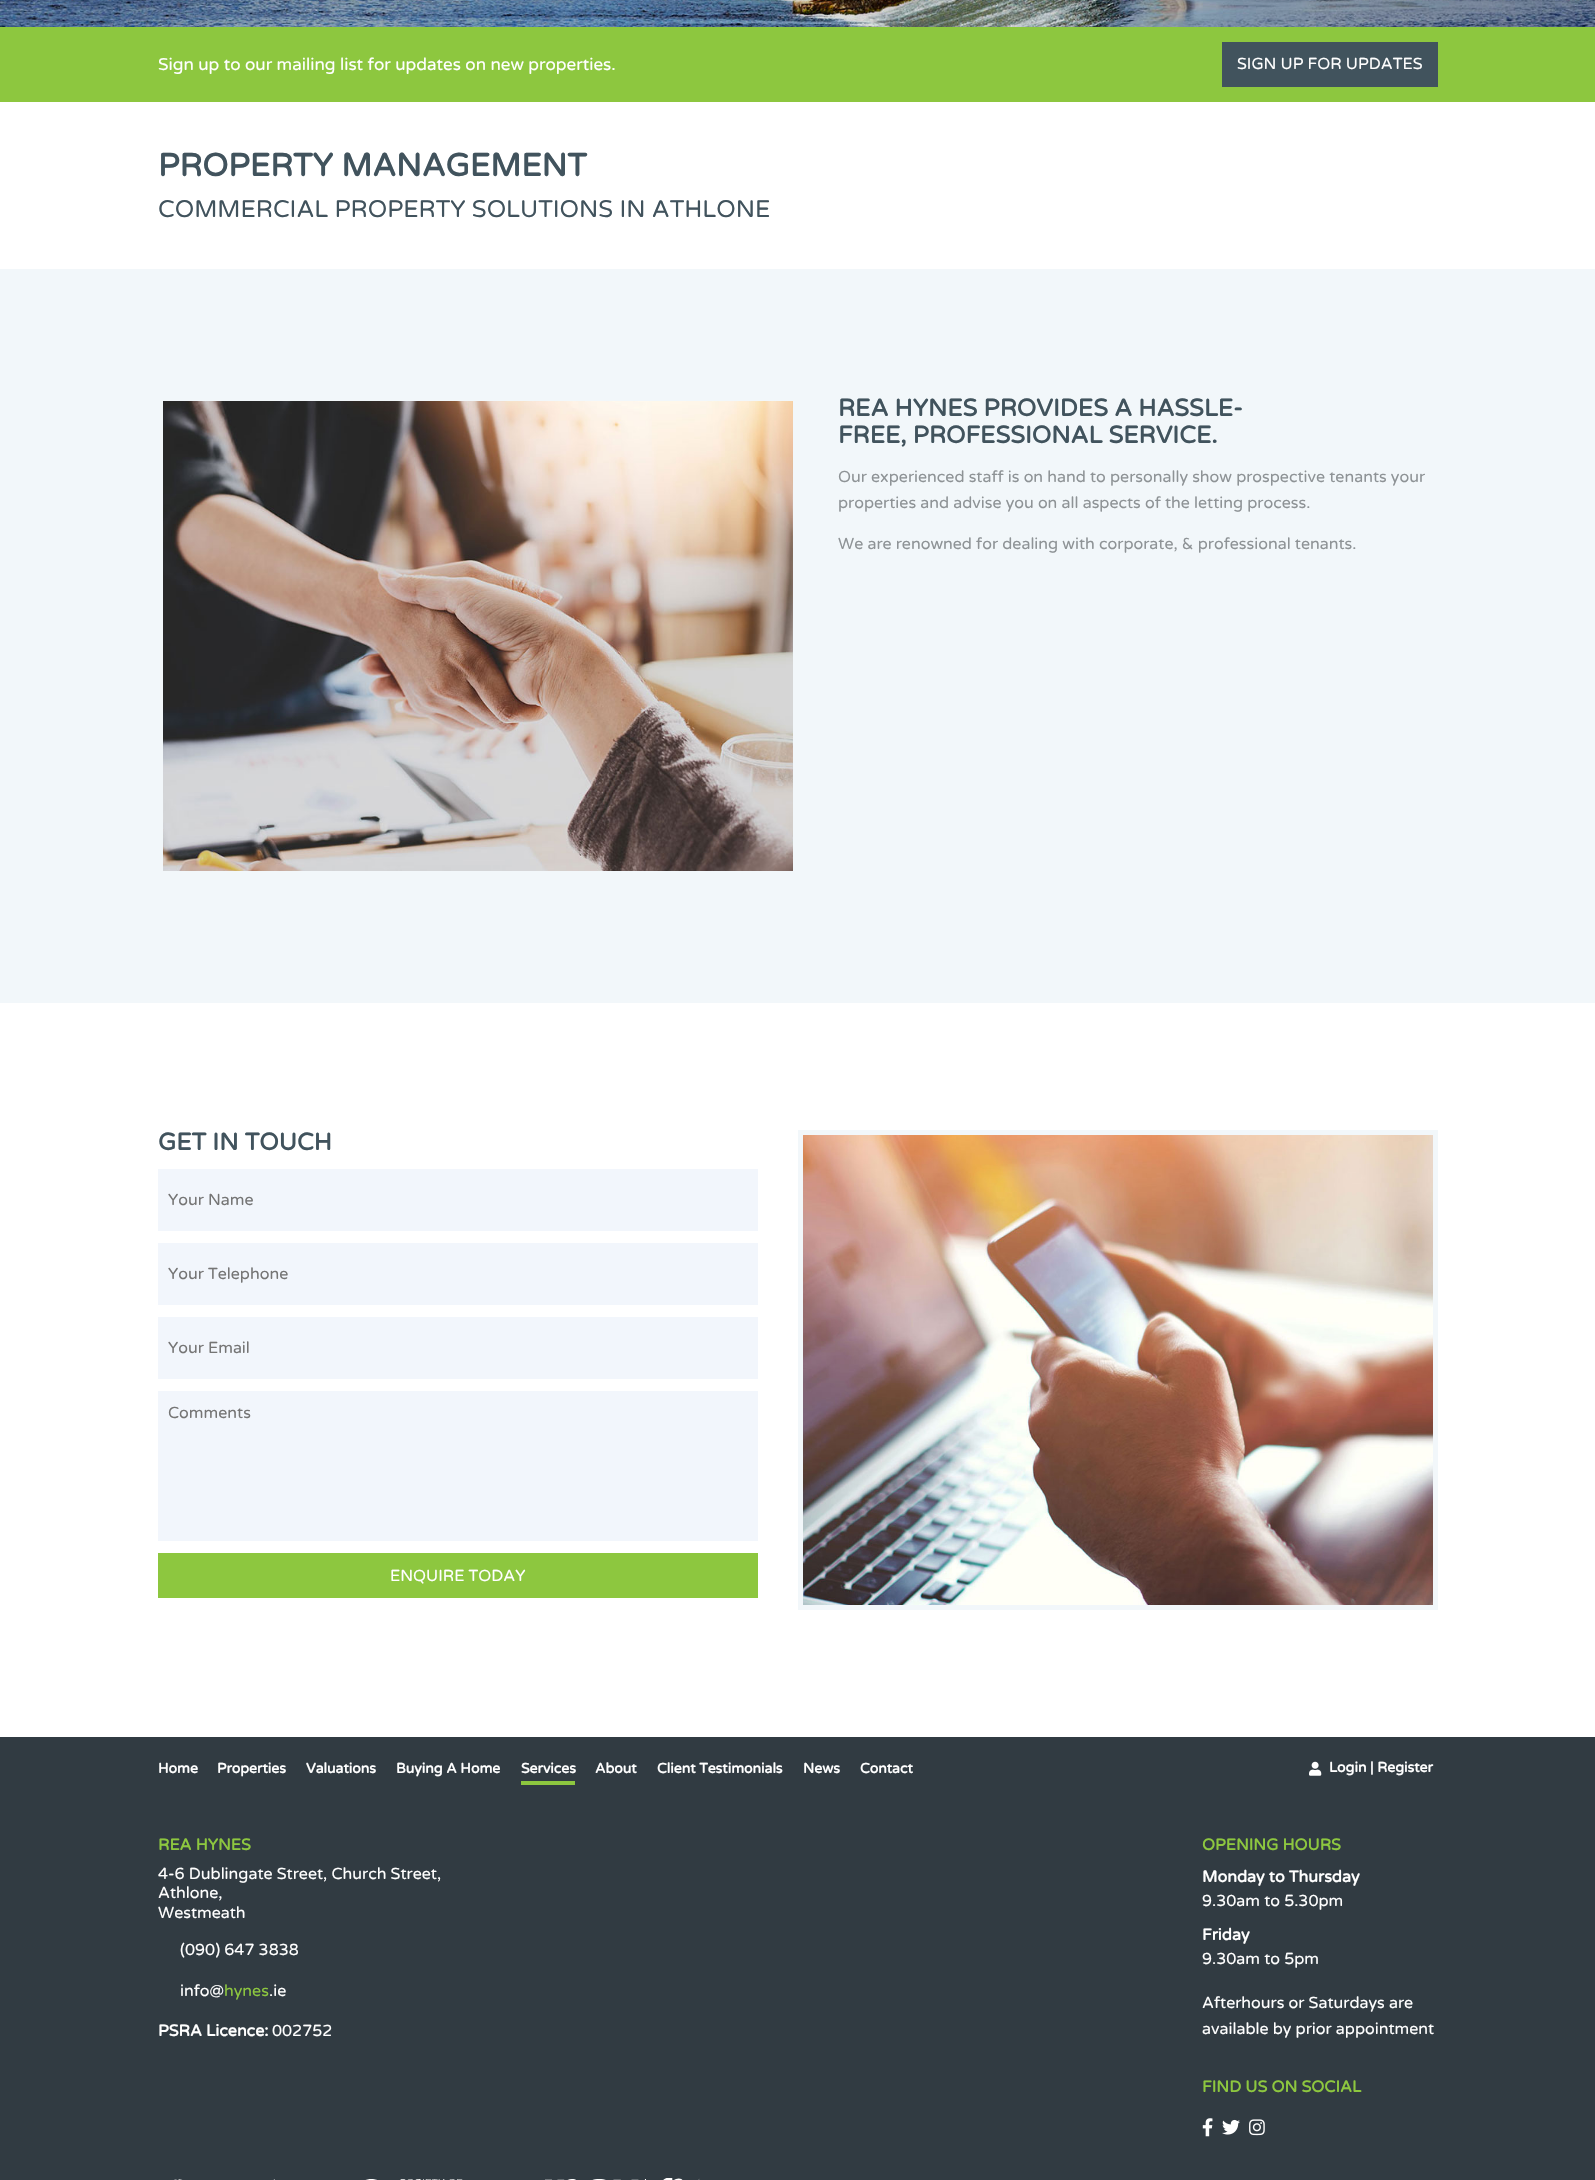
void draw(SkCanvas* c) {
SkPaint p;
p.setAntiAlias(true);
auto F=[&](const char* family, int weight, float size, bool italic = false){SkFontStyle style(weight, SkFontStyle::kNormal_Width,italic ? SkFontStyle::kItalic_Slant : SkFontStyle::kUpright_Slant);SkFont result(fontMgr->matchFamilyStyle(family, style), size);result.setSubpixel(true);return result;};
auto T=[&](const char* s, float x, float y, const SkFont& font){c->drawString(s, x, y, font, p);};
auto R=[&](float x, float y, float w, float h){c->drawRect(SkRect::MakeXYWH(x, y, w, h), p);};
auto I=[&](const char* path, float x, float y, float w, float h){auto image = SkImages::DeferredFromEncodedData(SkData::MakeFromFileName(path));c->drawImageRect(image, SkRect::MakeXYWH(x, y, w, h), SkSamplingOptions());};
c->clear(0xffffffff);
I("1.png",0,0,1595,27);
p.setColor(0xff8dc73f);
R(0,27,1595,75);
auto f1 = F("Varela Round",400,17);
p.setColor(0xffffffff);
T("Sign up to our mailing list for updates on new properties.",158,70,f1);
p.setColor(0xff41535d);
R(1222,42,216,45);
auto f2 = F("Varela Round",400,16);
p.setColor(0xffffffff);
T("SIGN UP FOR UPDATES",1237,69,f2);
auto f3 = F("Varela Round",700,32);
p.setColor(0xff41535d);
T("PROPERTY MANAGEMENT",158,176,f3);
auto f4 = F("Varela Round",400,24);
T("COMMERCIAL PROPERTY SOLUTIONS IN ATHLONE",158,217,f4);
p.setColor(0xfff2f7fa);
R(0,269,1595,734);
I("2.png",163,401,630,470);
auto f5 = F("Varela Round",700,24);
p.setColor(0xff41535d);
T("REA HYNES PROVIDES A HASSLE-",838,416,f5);
T("FREE, PROFESSIONAL SERVICE.",838,443,f5);
p.setColor(0xff8e9396);
T("Our experienced staff is on hand to personally show prospective tenants your",838,482,f2);
T("properties and advise you on all aspects of the letting process.",838,508,f2);
T("We are renowned for dealing with corporate, & professional tenants.",838,549,f2);
p.setColor(0xff41535d);
T("GET IN TOUCH",158,1150,f5);
p.setColor(0xfff2f6fc);
R(158,1169,600,62);
p.setColor(0xff757575);
T("Your Name",168,1205,f2);
p.setColor(0xfff2f6fc);
R(158,1243,600,62);
p.setColor(0xff757575);
T("Your Telephone",168,1279,f2);
p.setColor(0xfff2f6fc);
R(158,1317,600,62);
p.setColor(0xff757575);
T("Your Email",168,1353,f2);
p.setColor(0xfff2f6fc);
R(158,1391,600,150);
p.setColor(0xff757575);
T("Comments",168,1418,f2);
p.setColor(0xff8dc73f);
R(158,1553,600,45);
p.setColor(0xffffffff);
T("ENQUIRE TODAY",390,1581,f2);
I("3.png",803,1135,630,470);
p.setStroke(true);
p.setStrokeWidth(5);
p.setColor(0xfff2f7fa);
c->drawRect(SkRect::MakeXYWH(800.5,1132.5,635,475),p);
p.setStroke(false);
p.setColor(0xff313b42);
R(0,1737,1595,443);
auto f6 = F("Varela Round",700,14);
p.setColor(0xffffffff);
T("Home",158,1773,f6);
T("Properties",217,1773,f6);
T("Valuations",306,1773,f6);
T("Buying A Home",396,1773,f6);
p.setColor(0xff8dc73f);
R(521,1781,54,4);
p.setColor(0xffffffff);
T("Services",521,1773,f6);
T("About",595,1773,f6);
T("Client Testimonials",657,1773,f6);
T("News",803,1773,f6);
T("Contact",860,1773,f6);
I("4.png",1309,1761,13,15);
T("Login | Register",1329,1772,f6);
auto f7 = F("Varela Round",700,16);
p.setColor(0xff8dc73f);
T("REA HYNES",158,1850,f7);
p.setColor(0xffffffff);
T("4-6 Dublingate Street, Church Street,",158,1879,f2);
T("Athlone,",158,1898,f2);
T("Westmeath",158,1918,f2);
T("(090) 647 3838",180,1955,f2);
T("info@",180,1996,f2);
p.setColor(0xff8dc73f);
T("hynes",224,1996,f2);
p.setColor(0xffffffff);
T(".ie",269,1996,f2);
T("PSRA Licence:",158,2036,f7);
T("002752",272,2036,f2);
p.setColor(0xff8dc73f);
T("OPENING HOURS",1202,1850,f7);
p.setColor(0xffffffff);
T("Monday to Thursday",1202,1882,f7);
T("9.30am to 5.30pm",1202,1906,f2);
T("Friday",1202,1940,f7);
T("9.30am to 5pm",1202,1964,f2);
T("Afterhours or Saturdays are",1202,2008,f2);
T("available by prior appointment",1202,2034,f2);
p.setColor(0xff8dc73f);
T("FIND US ON SOCIAL",1202,2092,f7);
I("5.png",1202,2118,11,19);
I("6.png",1222,2119,18,16);
I("7.png",1249,2119,16,17);
I("8.png",174,2179,101,1);
I("9.png",365,2179,98,1);
I("10.png",545,2179,101,1);
I("11.png",663,2178,37,2);
}
